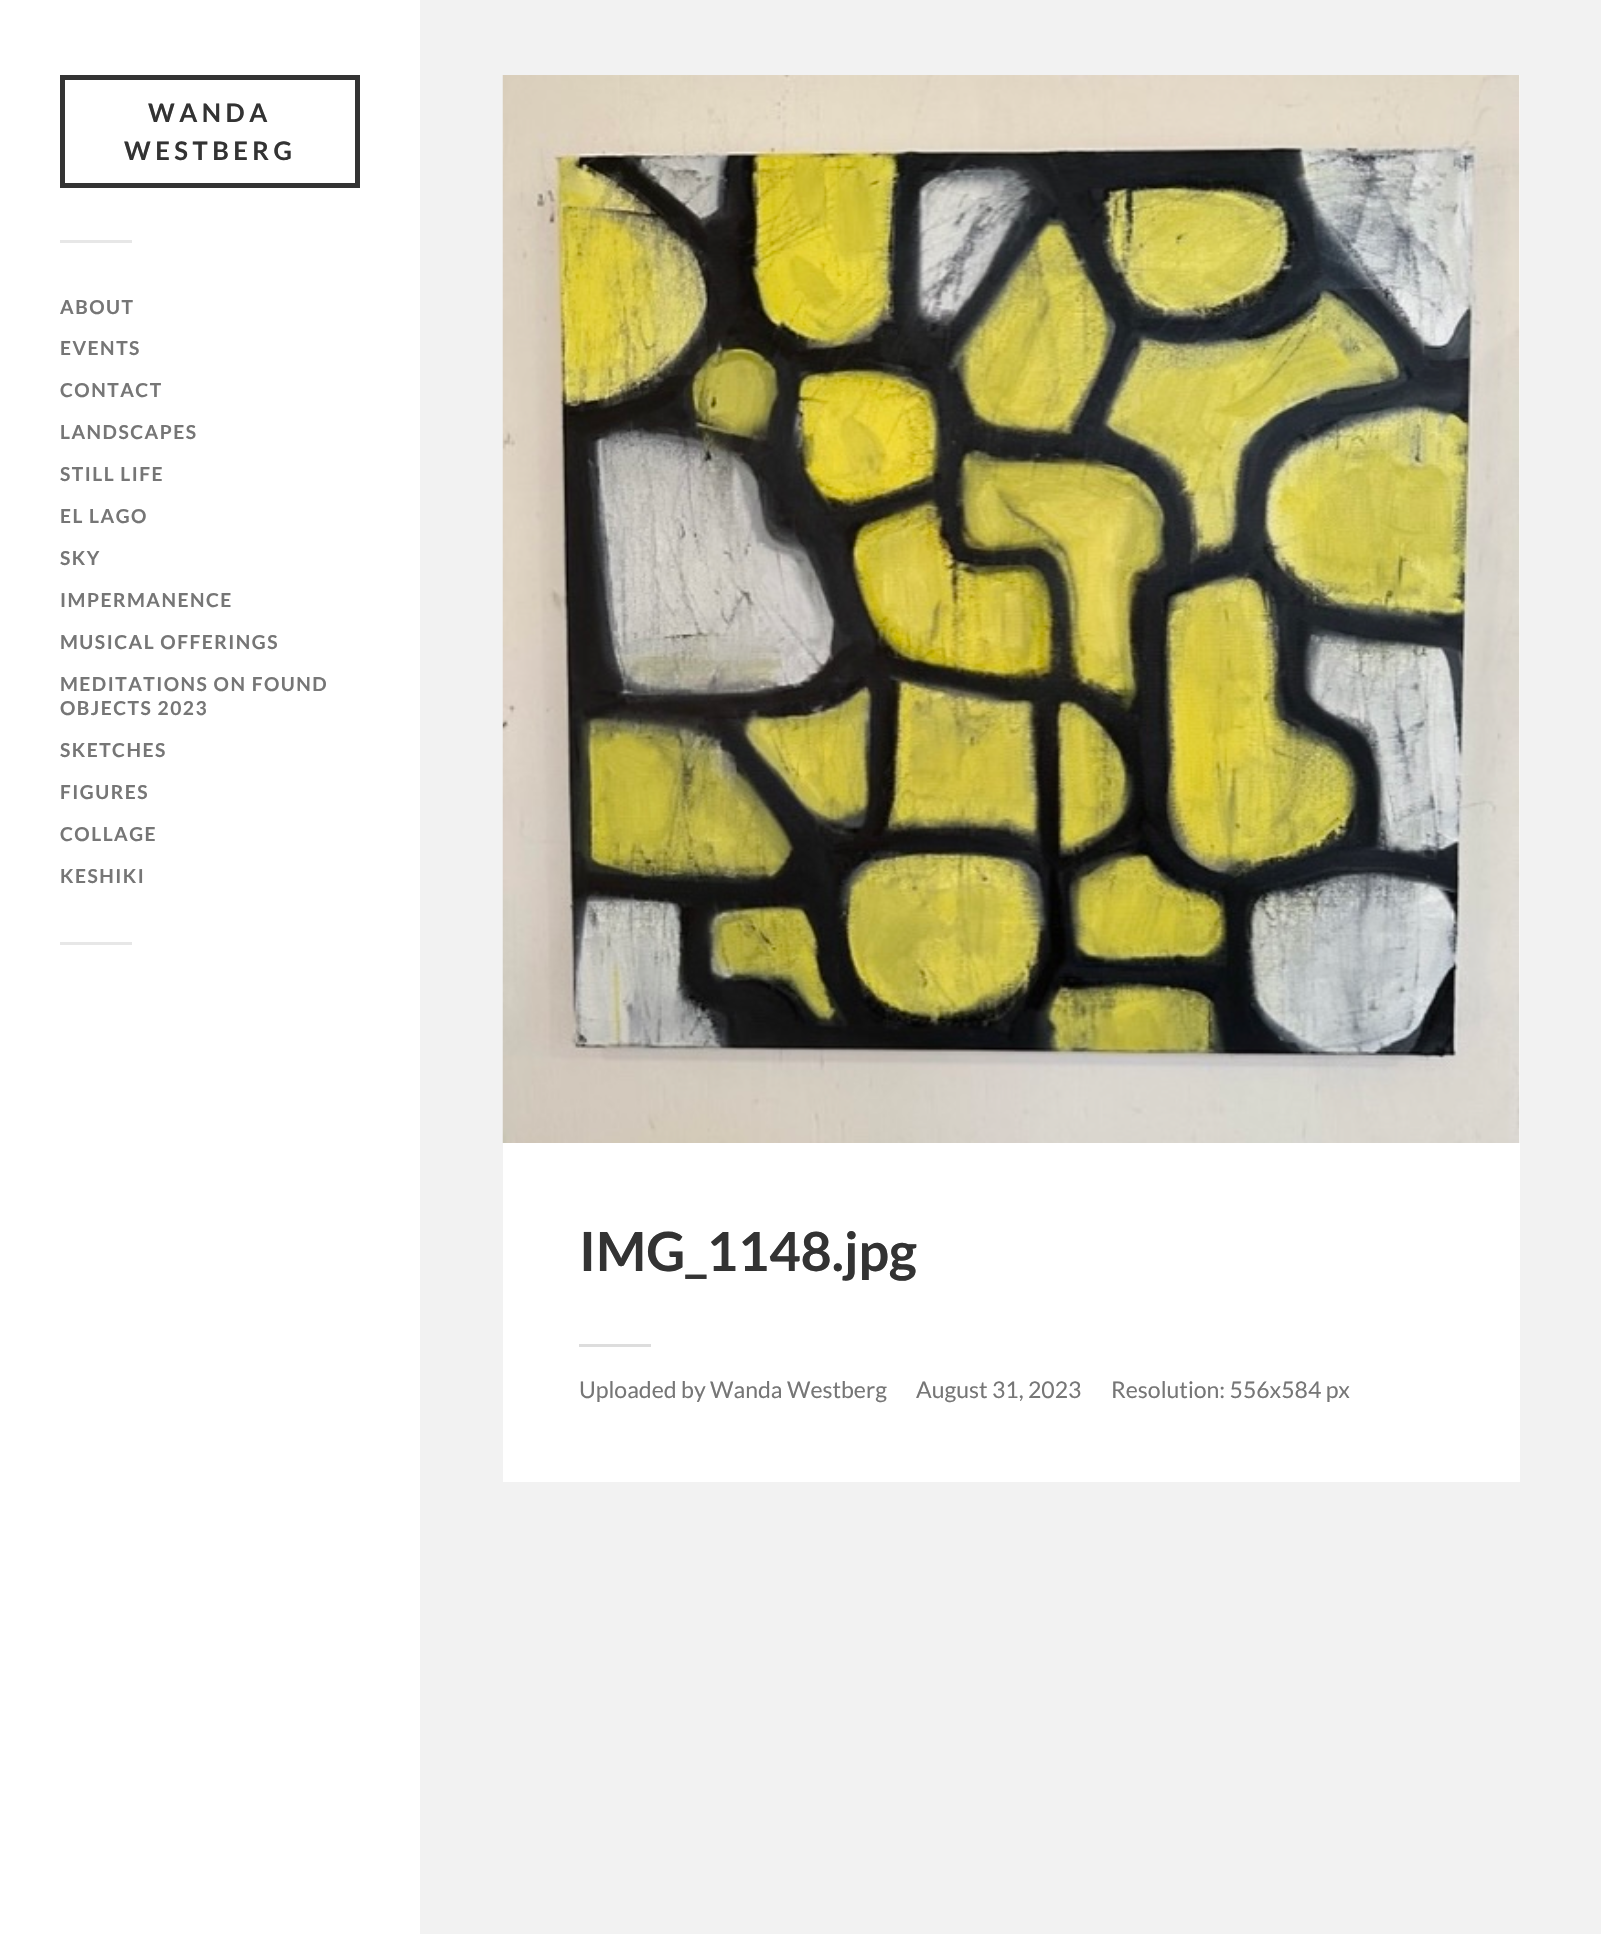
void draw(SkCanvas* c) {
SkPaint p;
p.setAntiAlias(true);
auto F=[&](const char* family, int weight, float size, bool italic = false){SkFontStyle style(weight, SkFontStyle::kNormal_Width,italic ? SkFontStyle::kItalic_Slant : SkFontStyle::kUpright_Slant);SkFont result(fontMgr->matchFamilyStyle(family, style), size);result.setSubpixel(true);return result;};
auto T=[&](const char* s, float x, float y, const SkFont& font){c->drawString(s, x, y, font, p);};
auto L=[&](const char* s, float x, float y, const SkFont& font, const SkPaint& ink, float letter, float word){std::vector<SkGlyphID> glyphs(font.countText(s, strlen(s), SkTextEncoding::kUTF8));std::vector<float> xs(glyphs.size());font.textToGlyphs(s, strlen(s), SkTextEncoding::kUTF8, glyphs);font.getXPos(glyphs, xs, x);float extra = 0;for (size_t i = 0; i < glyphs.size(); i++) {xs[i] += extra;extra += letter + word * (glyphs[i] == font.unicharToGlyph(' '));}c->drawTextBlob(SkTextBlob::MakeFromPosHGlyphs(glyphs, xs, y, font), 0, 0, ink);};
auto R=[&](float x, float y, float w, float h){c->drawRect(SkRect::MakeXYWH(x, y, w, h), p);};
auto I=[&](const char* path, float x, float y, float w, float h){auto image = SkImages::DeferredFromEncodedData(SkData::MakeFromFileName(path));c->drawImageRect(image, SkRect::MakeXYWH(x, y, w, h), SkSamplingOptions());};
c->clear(0xfff2f2f2);
p.setColor(0xffffffff);
R(0,0,420,1934);
p.setStroke(true);
p.setStrokeWidth(5);
p.setColor(0xff333333);
c->drawRect(SkRect::MakeXYWH(62.5,77.5,295,108),p);
auto f1 = F("Lato",700,25.5);
p.setStroke(false);
L("WANDA",148,122,f1,p,4.5,0);
L("WESTBERG",124,160,f1,p,4.5,0);
p.setColor(0xffe7e7e7);
R(60,240,72,3);
auto f2 = F("Lato",700,19.2);
p.setColor(0xff767676);
L("ABOUT",60,314,f2,p,1.5,0);
L("EVENTS",60,355,f2,p,1.5,0);
L("CONTACT",60,397,f2,p,1.5,0);
L("LANDSCAPES",60,439,f2,p,1.5,0);
L("STILL LIFE",60,481,f2,p,1.5,0);
L("EL LAGO",60,523,f2,p,1.5,0);
L("SKY",60,565,f2,p,1.5,0);
L("IMPERMANENCE",60,607,f2,p,1.5,0);
L("MUSICAL OFFERINGS",60,649,f2,p,1.5,0);
L("MEDITATIONS ON FOUND",60,691,f2,p,1.5,0);
L("OBJECTS 2023",60,715,f2,p,1.5,0);
L("SKETCHES",60,757,f2,p,1.5,0);
L("FIGURES",60,799,f2,p,1.5,0);
L("COLLAGE",60,841,f2,p,1.5,0);
L("KESHIKI",60,883,f2,p,1.5,0);
p.setColor(0xffe7e7e7);
R(60,942,72,3);
p.setColor(0xffffffff);
R(503,75,1017,1407);
I("1.png",502,75,1018,1068);
auto f3 = F("Lato",700,54);
p.setColor(0xff333333);
T("IMG_1148.jpg",579,1271,f3);
p.setColor(0xffdddddd);
R(579,1344,72,3);
auto f4 = F("Lato",400,23);
p.setColor(0xff767676);
T("Uploaded by Wanda Westberg",579,1398,f4);
T("August 31, 2023",916,1398,f4);
T("Resolution: 556x584 px",1111,1398,f4);
}
